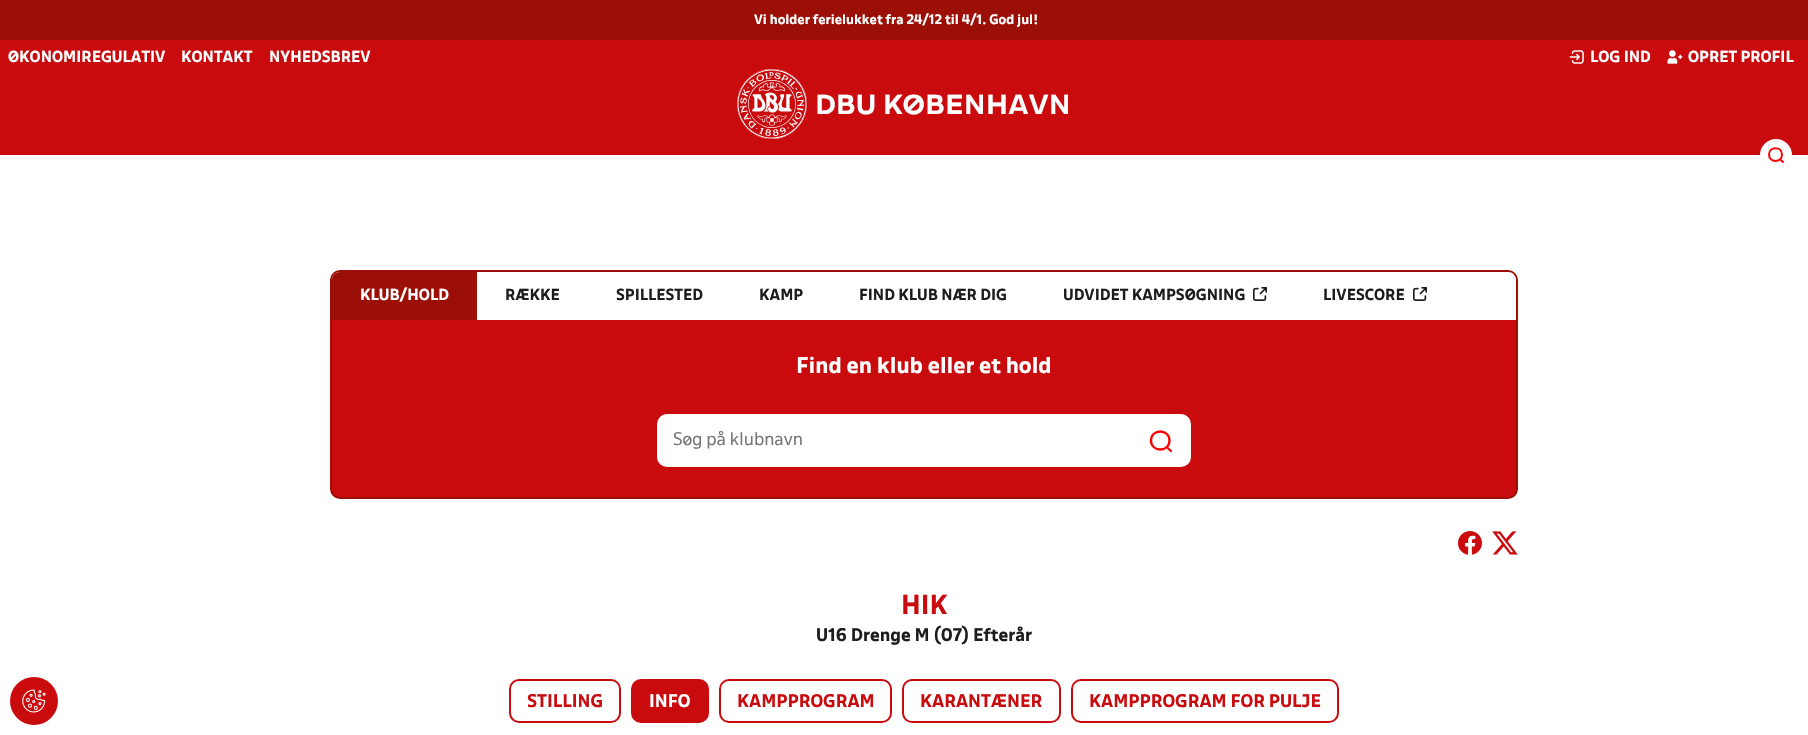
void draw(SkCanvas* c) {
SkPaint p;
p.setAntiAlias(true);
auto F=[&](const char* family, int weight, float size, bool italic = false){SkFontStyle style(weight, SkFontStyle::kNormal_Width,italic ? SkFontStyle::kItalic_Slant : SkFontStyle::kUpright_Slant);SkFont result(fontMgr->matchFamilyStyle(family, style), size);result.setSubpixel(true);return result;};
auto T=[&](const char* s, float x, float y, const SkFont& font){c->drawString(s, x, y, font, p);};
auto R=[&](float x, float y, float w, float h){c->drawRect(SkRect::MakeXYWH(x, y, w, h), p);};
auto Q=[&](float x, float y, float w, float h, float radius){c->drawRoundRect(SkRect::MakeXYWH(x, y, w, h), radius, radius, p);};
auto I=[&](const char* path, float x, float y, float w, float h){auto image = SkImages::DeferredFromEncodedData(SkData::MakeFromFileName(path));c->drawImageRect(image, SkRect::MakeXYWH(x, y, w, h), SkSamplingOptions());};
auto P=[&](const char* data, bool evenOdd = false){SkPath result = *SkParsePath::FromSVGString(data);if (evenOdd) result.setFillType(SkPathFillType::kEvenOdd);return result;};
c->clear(0xffffffff);
p.setColor(0xff9c0f06);
R(0,0,1808,40);
auto f1 = F("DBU",700,12);
p.setColor(0xffffffff);
T("Vi holder ferielukket fra 24/12 til 4/1. God jul!",754,24,f1);
p.setColor(0xffc90b0e);
R(0,40,1808,115);
auto f2 = F("DBU",700,14);
p.setColor(0xffffffff);
T("ØKONOMIREGULATIV",8,62,f2);
T("KONTAKT",181,62,f2);
T("NYHEDSBREV",269,62,f2);
I("1.png",1569,50,15,14);
T("LOG IND",1590,62,f2);
I("2.png",1667,50,16,14);
T("OPRET PROFIL",1688,62,f2);
I("3.png",737,69,70,70);
auto f3 = F("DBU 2",700,24);
T("DBU KØBENHAVN",815,114,f3);
c->drawCircle(1776,155,16,p);
p.setStroke(true);
p.setStrokeWidth(2);
p.setStrokeCap(SkPaint::kRound_Cap);
p.setColor(0xfffb0000);
c->drawPath(P("M1780 159l3 3m-1-7.5c0 8.5-13 8.5-13 0c0-8.5 13-8.5 13 0z"),p);
p.setStroke(false);
p.setColor(0xffc90b0e);
c->drawCircle(34,701,24,p);
I("4.png",22,689,24,24);
c->drawRoundRect(SkRect::MakeXYWH(331,271,1186,227),9,9,p);
p.setStroke(true);
p.setStrokeCap(SkPaint::kButt_Cap);
p.setColor(0xff9c0f06);
c->drawRoundRect(SkRect::MakeXYWH(331,271,1186,227),9,9,p);
p.setStroke(false);
p.setColor(0xffffffff);
c->drawPath(P("M340 272h1168c4.5 0 8 3.5 8 8v40h-1184v-40c0-4.5 3.5-8 8-8z"),p);
p.setColor(0xff9c0f06);
c->drawPath(P("M340 272h137v48h-145v-40c0-4.5 3.5-8 8-8z"),p);
p.setColor(0xffffffff);
T("KLUB/HOLD",360,300,f2);
p.setColor(0xff1d1d1d);
T("RÆKKE",505,300,f2);
T("SPILLESTED",616,300,f2);
T("KAMP",759,300,f2);
T("FIND KLUB NÆR DIG",859,300,f2);
T("UDVIDET KAMPSØGNING",1063,300,f2);
I("5.png",1253,287,14,14);
T("LIVESCORE",1323,300,f2);
I("5.png",1413,287,14,14);
auto f4 = F("DBU",700,20);
p.setColor(0xffffffff);
T("Find en klub eller et hold",796,373,f4);
Q(657,414,534,53,10);
auto f5 = F("DBU",400,16);
p.setColor(0xff757575);
T("Søg på klubnavn",673,445,f5);
p.setStroke(true);
p.setStrokeWidth(2.3);
p.setStrokeCap(SkPaint::kRound_Cap);
p.setColor(0xfffb0000);
c->drawPath(P("M1166.5 447l4.5 4m-1.5-10.5c0 12-18.5 12-18.5 0c0-12 18.5-12 18.5 0z"),p);
I("6.png",1458,531,24,24);
I("7.png",1492,531,26,24);
auto f6 = F("DBU",700,24);
p.setStroke(false);
p.setColor(0xffc90b0e);
T("HIK",901,614,f6);
auto f7 = F("DBU",700,16);
p.setColor(0xff1d1d1d);
T("U16 Drenge M (07) Efterår",816,641,f7);
p.setStroke(true);
p.setStrokeWidth(2);
p.setStrokeCap(SkPaint::kButt_Cap);
p.setColor(0xffc90b0e);
c->drawRoundRect(SkRect::MakeXYWH(510,680,110,42),9,9,p);
p.setStroke(false);
T("STILLING",527,707,f7);
c->drawRoundRect(SkRect::MakeXYWH(632,680,76,42),9,9,p);
p.setStroke(true);
c->drawRoundRect(SkRect::MakeXYWH(632,680,76,42),9,9,p);
p.setStroke(false);
p.setColor(0xffffffff);
T("INFO",649,707,f7);
p.setStroke(true);
p.setColor(0xffc90b0e);
c->drawRoundRect(SkRect::MakeXYWH(720,680,171,42),9,9,p);
p.setStroke(false);
T("KAMPPROGRAM",737,707,f7);
p.setStroke(true);
c->drawRoundRect(SkRect::MakeXYWH(903,680,157,42),9,9,p);
p.setStroke(false);
T("KARANTÆNER",920,707,f7);
p.setStroke(true);
c->drawRoundRect(SkRect::MakeXYWH(1072,680,266,42),9,9,p);
p.setStroke(false);
T("KAMPPROGRAM FOR PULJE",1089,707,f7);
}
